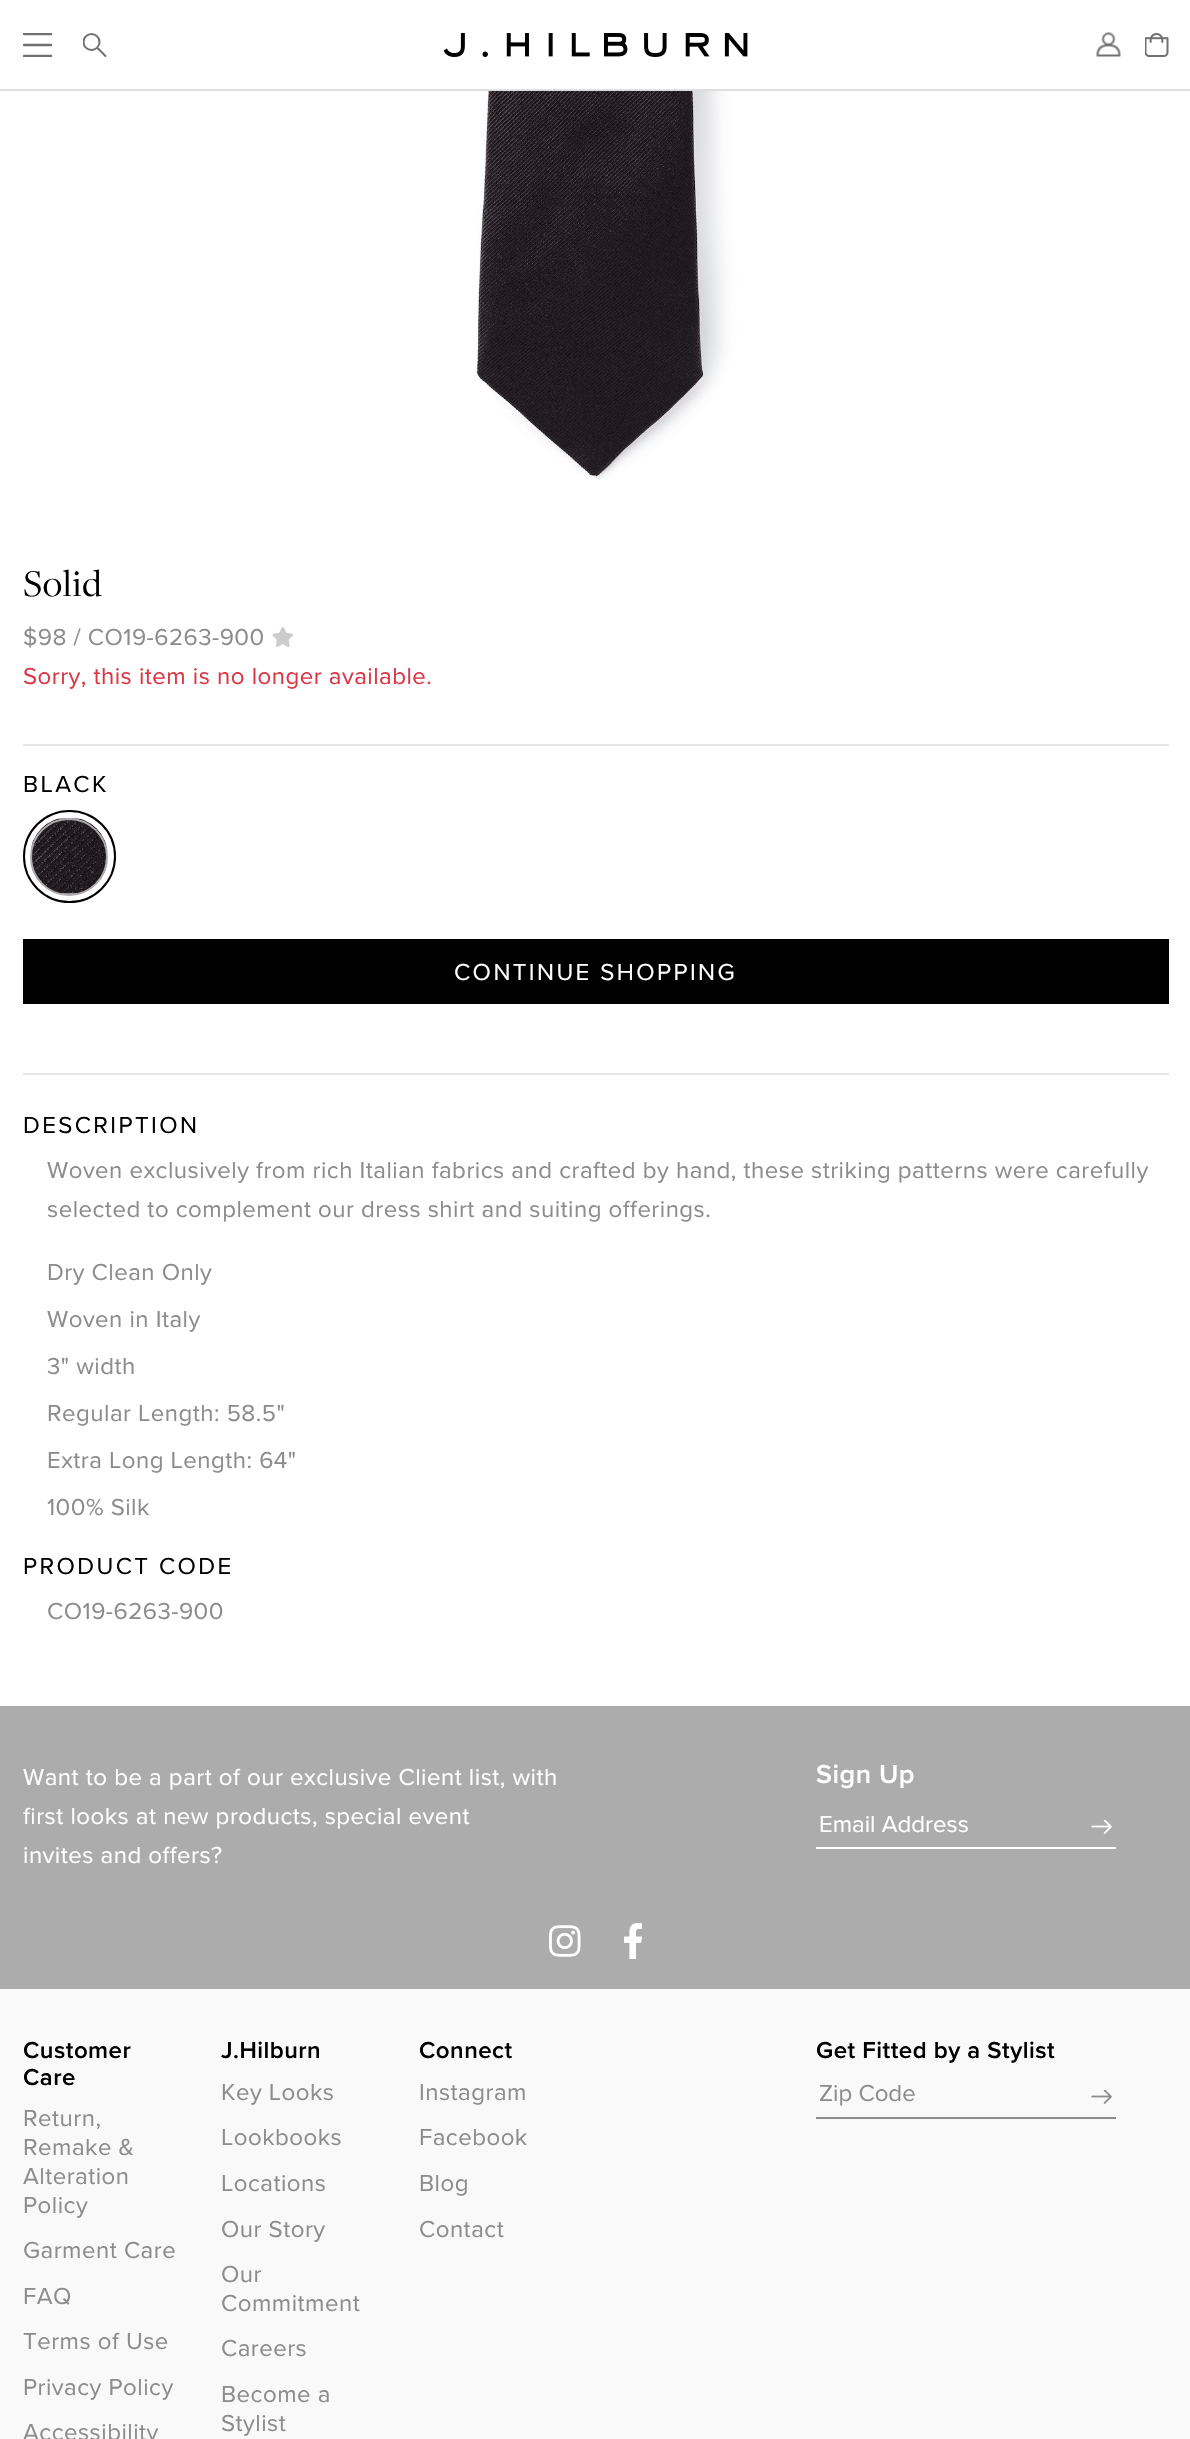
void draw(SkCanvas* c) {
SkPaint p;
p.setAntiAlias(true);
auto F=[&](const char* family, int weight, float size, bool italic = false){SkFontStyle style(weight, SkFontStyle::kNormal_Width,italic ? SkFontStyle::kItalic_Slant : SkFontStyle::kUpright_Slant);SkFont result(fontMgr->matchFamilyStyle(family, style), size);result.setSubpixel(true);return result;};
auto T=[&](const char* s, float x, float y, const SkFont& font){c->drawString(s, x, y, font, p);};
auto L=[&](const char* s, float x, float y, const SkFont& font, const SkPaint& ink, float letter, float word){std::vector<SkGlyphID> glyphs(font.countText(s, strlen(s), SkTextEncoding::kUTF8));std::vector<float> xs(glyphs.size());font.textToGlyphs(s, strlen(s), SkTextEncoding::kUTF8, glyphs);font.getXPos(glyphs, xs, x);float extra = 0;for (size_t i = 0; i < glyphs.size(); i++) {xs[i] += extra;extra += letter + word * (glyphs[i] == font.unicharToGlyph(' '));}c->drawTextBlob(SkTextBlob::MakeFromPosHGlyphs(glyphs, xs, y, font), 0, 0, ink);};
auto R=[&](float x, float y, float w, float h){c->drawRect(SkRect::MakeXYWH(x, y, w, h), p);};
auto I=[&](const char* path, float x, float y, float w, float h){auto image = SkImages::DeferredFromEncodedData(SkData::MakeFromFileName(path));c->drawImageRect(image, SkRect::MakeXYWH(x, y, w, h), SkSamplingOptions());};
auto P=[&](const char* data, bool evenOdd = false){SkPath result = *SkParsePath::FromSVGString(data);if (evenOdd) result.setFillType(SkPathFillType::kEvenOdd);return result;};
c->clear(0xfff9f9f9);
p.setColor(0xffffffff);
R(0,0,1190,89);
p.setColor(0xffdedede);
R(0,89,1190,2);
c->save();
c->clipRect(SkRect::MakeXYWH(23,33,30,24));
p.setStroke(true);
p.setStrokeWidth(2.5);
p.setStrokeCap(SkPaint::kRound_Cap);
p.setStrokeJoin(SkPaint::kRound_Join);
p.setColor(0xff707070);
c->drawPath(P("M24 34h27m-27 11h27m-27 11h27"),p);
c->restore();
p.setStrokeWidth(2);
c->drawPath(P("M98 48.5l7.5 7.5"),p);
c->save();
c->clipRect(SkRect::MakeXYWH(83,33,24,24));
p.setStrokeCap(SkPaint::kButt_Cap);
p.setStrokeJoin(SkPaint::kMiter_Join);
c->drawCircle(91.5,42,8,p);
c->restore();
I("1.png",443,33,305,24);
I("2.png",1096,32,25,25);
I("3.png",1145,33,24,24);
p.setStroke(false);
p.setColor(0xffffffff);
R(0,91,1190,1615);
I("4.png",473,91,294,388);
auto f1 = F("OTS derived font",400,39);
p.setColor(0xff000000);
L("Solid",23,596,f1,p,.75,0);
auto f2 = F("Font",400,24);
p.setColor(0xff8c8c8c);
L("$98 / CO19-6263-900",23,645,f2,p,.48,0);
I("5.png",272,627,21,20);
p.setColor(0xffdc3545);
L("Sorry, this item is no longer available.",23,684,f2,p,.48,0);
p.setColor(0xffe6e6e6);
R(23,744,1146,2);
p.setColor(0xff000000);
L("BLACK",23,792,f2,p,2.4,0);
p.setStroke(true);
c->drawCircle(69.5,856.5,45.5,p);
I("6.png",31,818,76,76);
p.setColor(0xffacacac);
c->drawCircle(69,857,38,p);
p.setStroke(false);
p.setColor(0xff000000);
R(23,939,1146,65);
p.setColor(0xffffffff);
L("CONTINUE SHOPPING",454,980,f2,p,2.4,0);
p.setColor(0xffe6e6e6);
R(23,1073,1146,2);
p.setColor(0xff000000);
L("DESCRIPTION",23,1133,f2,p,2.4,0);
p.setColor(0xff8c8c8c);
L("Woven exclusively from rich Italian fabrics and crafted by hand, these striking patterns were carefully",47,1178,f2,p,.48,0);
L("selected to complement our dress shirt and suiting offerings.",47,1217,f2,p,.48,0);
L("Dry Clean Only",47,1280,f2,p,.48,0);
L("Woven in Italy",47,1327,f2,p,.48,0);
L("3\" width",47,1374,f2,p,.48,0);
L("Regular Length: 58.5\"",47,1421,f2,p,.48,0);
L("Extra Long Length: 64\"",47,1468,f2,p,.48,0);
L("100% Silk",47,1515,f2,p,.48,0);
p.setColor(0xff000000);
L("PRODUCT CODE",23,1574,f2,p,2.4,0);
p.setColor(0xff8c8c8c);
L("CO19-6263-900",47,1619,f2,p,.48,0);
p.setColor(0xffacacac);
R(0,1706,1190,283);
p.setColor(0xffffffff);
L("Want to be a part of our exclusive Client list, with",23,1785,f2,p,.48,0);
L("first looks at new products, special event",23,1824,f2,p,.48,0);
L("invites and offers?",23,1863,f2,p,.48,0);
auto f3 = F("Proxima Nova",600,27);
L("Sign Up",816,1783,f3,p,.5,0);
R(816,1847,300,2);
T("Email Address",819,1832,f2);
I("7.png",1091,1820,21,14);
I("8.png",549,1925,32,32);
I("9.png",624,1923,18,36);
auto f4 = F("Proxima Nova",600,24);
p.setColor(0xff000000);
L("Customer",23,2058,f4,p,.48,0);
L("Care",23,2085,f4,p,.48,0);
p.setColor(0xff8c8c8c);
L("Return,",23,2126,f2,p,.48,0);
L("Remake &",23,2155,f2,p,.48,0);
L("Alteration",23,2184,f2,p,.48,0);
L("Policy",23,2213,f2,p,.48,0);
L("Garment Care",23,2258,f2,p,.48,0);
L("FAQ",23,2304,f2,p,.48,0);
L("Terms of Use",23,2349,f2,p,.48,0);
L("Privacy Policy",23,2395,f2,p,.48,0);
L("Accessibility",23,2440,f2,p,.48,0);
p.setColor(0xff000000);
L("J.Hilburn",221,2058,f4,p,.48,0);
p.setColor(0xff8c8c8c);
L("Key Looks",221,2100,f2,p,.48,0);
L("Lookbooks",221,2145,f2,p,.48,0);
L("Locations",221,2191,f2,p,.48,0);
L("Our Story",221,2237,f2,p,.48,0);
L("Our",221,2282,f2,p,.48,0);
L("Commitment",221,2311,f2,p,.48,0);
L("Careers",221,2356,f2,p,.48,0);
L("Become a",221,2402,f2,p,.48,0);
L("Stylist",221,2431,f2,p,.48,0);
p.setColor(0xff000000);
L("Connect",419,2058,f4,p,.48,0);
p.setColor(0xff8c8c8c);
L("Instagram",419,2100,f2,p,.48,0);
L("Facebook",419,2145,f2,p,.48,0);
L("Blog",419,2191,f2,p,.48,0);
L("Contact",419,2237,f2,p,.48,0);
p.setColor(0xff000000);
L("Get Fitted by a Stylist",816,2058,f4,p,.48,0);
p.setColor(0xff8c8c8c);
R(816,2117,300,2);
T("Zip Code",819,2101,f2);
I("10.png",1091,2090,21,14);
}
